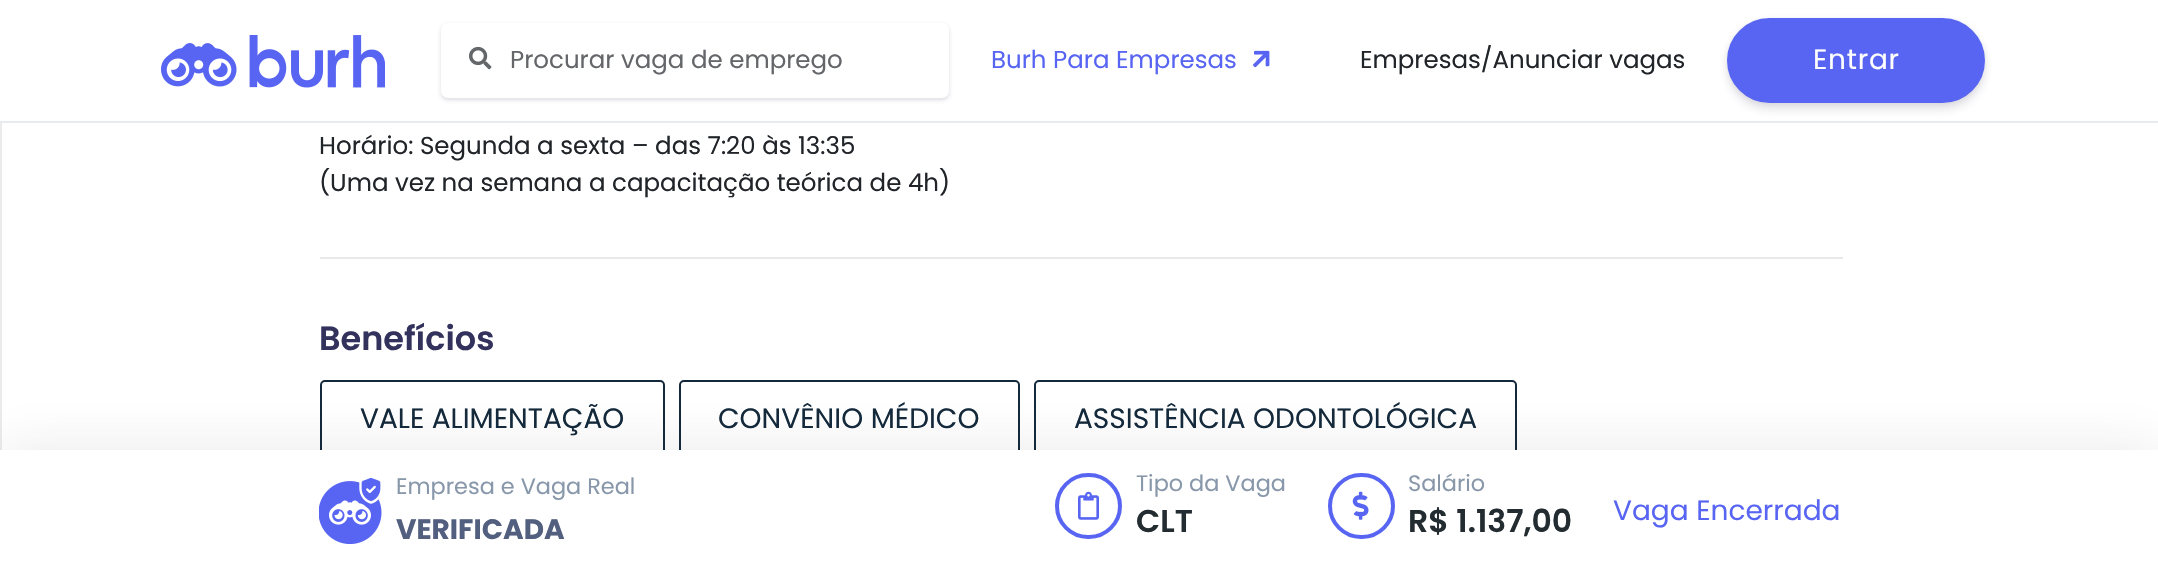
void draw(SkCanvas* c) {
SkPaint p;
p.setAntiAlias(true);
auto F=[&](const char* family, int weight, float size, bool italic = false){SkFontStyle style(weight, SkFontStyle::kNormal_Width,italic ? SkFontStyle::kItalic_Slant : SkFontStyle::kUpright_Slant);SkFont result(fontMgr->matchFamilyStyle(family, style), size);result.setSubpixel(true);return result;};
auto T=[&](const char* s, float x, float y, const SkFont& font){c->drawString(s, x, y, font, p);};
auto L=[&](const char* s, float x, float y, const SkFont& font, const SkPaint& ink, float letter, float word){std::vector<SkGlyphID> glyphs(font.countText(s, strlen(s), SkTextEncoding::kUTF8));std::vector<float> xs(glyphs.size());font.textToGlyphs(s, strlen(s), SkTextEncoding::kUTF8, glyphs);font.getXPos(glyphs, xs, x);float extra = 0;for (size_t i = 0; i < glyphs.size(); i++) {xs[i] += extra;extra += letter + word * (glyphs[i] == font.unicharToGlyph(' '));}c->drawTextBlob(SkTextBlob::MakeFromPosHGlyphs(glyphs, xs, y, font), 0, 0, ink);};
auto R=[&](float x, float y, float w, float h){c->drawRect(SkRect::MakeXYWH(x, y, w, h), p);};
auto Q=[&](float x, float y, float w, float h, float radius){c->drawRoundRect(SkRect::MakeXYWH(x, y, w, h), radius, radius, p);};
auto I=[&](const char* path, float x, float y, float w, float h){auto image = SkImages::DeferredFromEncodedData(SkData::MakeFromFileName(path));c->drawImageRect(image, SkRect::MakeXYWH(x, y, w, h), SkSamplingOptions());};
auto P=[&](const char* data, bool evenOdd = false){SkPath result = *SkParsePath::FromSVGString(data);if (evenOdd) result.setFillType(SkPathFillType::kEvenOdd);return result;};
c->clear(0xffffffff);
p.setColor(0xffe9ecef);
R(0,121,2158,2);
I("1.png",161,35,224,53);
p.setColor(0xfffafafa);
c->drawPath(P("M441 91v2c0 4 3 7 7 7h494c4 0 7-3 7-7v-61l-1-3v62c0 4-3 7-6 7h-494c-4 0-7-3-7-7z"),p);
p.setColor(0x2632325d);
p.setMaskFilter(SkMaskFilter::MakeBlur(kNormal_SkBlurStyle, 2.5));
c->drawRoundRect(SkRect::MakeXYWH(441,25,508,75),7,7,p);
p.setMaskFilter(nullptr);
p.setColor(0xffffffff);
Q(441,23,508,75,7);
I("2.png",469,46,23,24);
auto f1 = F("Poppins",400,24.5);
p.setColor(0xff646669);
T("Procurar vaga de emprego",510,68,f1);
p.setColor(0xff5865f2);
T("Burh Para Empresas",991,68,f1);
I("3.png",1253,50,17,18);
p.setColor(0xff212529);
T("Empresas/Anunciar vagas",1360,68,f1);
p.setColor(0x14000000);
p.setMaskFilter(SkMaskFilter::MakeBlur(kNormal_SkBlurStyle, 2.5));
c->drawRoundRect(SkRect::MakeXYWH(1727,19,258,86),43,43,p);
p.setMaskFilter(nullptr);
p.setColor(0x1c32325d);
p.setMaskFilter(SkMaskFilter::MakeBlur(kNormal_SkBlurStyle, 5));
c->drawRoundRect(SkRect::MakeXYWH(1727,25,258,85),42.5,42.5,p);
p.setMaskFilter(nullptr);
p.setColor(0xff5865f2);
c->drawRoundRect(SkRect::MakeXYWH(1728,19,256,83),41.5,41.5,p);
p.setStroke(true);
p.setStrokeWidth(2);
c->drawRoundRect(SkRect::MakeXYWH(1728,19,256,83),41.5,41.5,p);
auto f2 = F("Poppins",400,28);
p.setStroke(false);
p.setColor(0xffffffff);
L("Entrar",1813,69,f2,p,.75,0);
p.setColor(0xffebebeb);
R(0,123,2,327);
p.setColor(0xff212529);
T("Horário: Segunda a sexta – das 7:20 às 13:35",319,154,f1);
T("(Uma vez na semana a capacitação teórica de 4h)",319,191,f1);
p.setColor(0xffe9e9ea);
R(320,257,1523,2);
auto f3 = F("Poppins",600,33.5);
p.setColor(0xff32325d);
T("Benefícios",319,350,f3);
p.setStroke(true);
p.setColor(0xff13293b);
c->drawRoundRect(SkRect::MakeXYWH(321,381,343,77),4,4,p);
p.setStroke(false);
T("VALE ALIMENTAÇÃO",360,428,f2);
p.setStroke(true);
c->drawRoundRect(SkRect::MakeXYWH(680,381,339,77),4,4,p);
p.setStroke(false);
T("CONVÊNIO MÉDICO",718,428,f2);
p.setStroke(true);
c->drawRoundRect(SkRect::MakeXYWH(1035,381,481,77),4,4,p);
p.setStroke(false);
T("ASSISTÊNCIA ODONTOLÓGICA",1074,428,f2);
p.setColor(0x1a232c30);
p.setMaskFilter(SkMaskFilter::MakeBlur(kNormal_SkBlurStyle, 28));
c->drawRect(SkRect::MakeXYWH(0,450,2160,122),p);
p.setMaskFilter(nullptr);
p.setColor(0xffffffff);
R(0,450,2158,121);
I("4.png",319,478,63,66);
auto f4 = F("Poppins",400,22.4);
p.setColor(0xff8898aa);
T("Empresa e Vaga Real",396,494,f4);
auto f5 = F("Poppins",700,28);
p.setColor(0xff525f7f);
T("VERIFICADA",396,539,f5);
p.setStroke(true);
p.setStrokeWidth(4);
p.setColor(0xff5865f2);
c->drawRoundRect(SkRect::MakeXYWH(1057,475,63,62),31,31,p);
I("5.png",1078,491,21,29);
p.setStroke(false);
p.setColor(0xff8898aa);
T("Tipo da Vaga",1136,491,f4);
auto f6 = F("Poppins",600,31.5);
p.setColor(0xff232c30);
T("CLT",1136,532,f6);
p.setStroke(true);
p.setColor(0xff5865f2);
c->drawRoundRect(SkRect::MakeXYWH(1330,475,63,62),31,31,p);
I("6.png",1352,491,17,29);
p.setStroke(false);
p.setColor(0xff8898aa);
T("Salário",1408,491,f4);
p.setColor(0xff232c30);
T("R$ 1.137,00",1408,532,f6);
p.setColor(0xff5865f2);
T("Vaga Encerrada",1613,520,f2);
}
